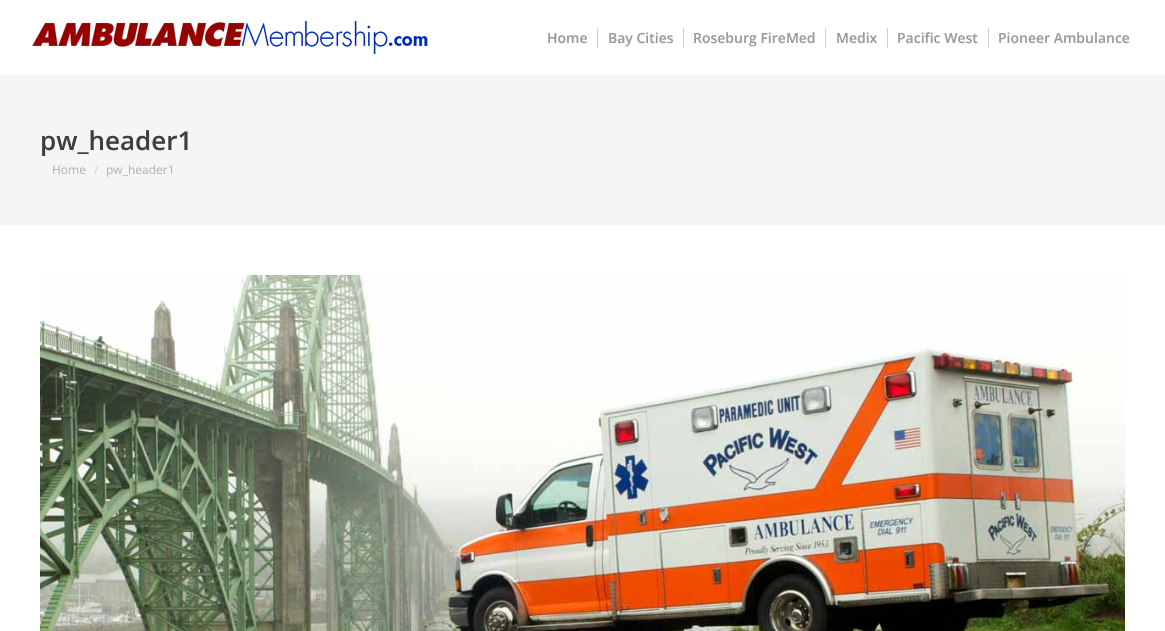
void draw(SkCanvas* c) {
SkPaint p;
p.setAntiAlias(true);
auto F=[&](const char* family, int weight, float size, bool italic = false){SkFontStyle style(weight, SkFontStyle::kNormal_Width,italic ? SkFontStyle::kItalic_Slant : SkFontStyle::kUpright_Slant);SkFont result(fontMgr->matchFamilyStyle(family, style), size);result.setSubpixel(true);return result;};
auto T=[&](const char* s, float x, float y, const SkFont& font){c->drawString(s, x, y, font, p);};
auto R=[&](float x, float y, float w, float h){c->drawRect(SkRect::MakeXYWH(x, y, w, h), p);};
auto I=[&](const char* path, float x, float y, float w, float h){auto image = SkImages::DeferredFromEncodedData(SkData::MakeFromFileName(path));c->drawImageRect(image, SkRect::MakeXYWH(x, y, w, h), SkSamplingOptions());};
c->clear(0xffffffff);
I("1.png",32,21,396,33);
auto f1 = F("Open Sans",600,14);
p.setColor(0xff999999);
T("Home",547,43,f1);
p.setColor(0xffcecece);
R(597,28,1,20);
p.setColor(0xff999999);
T("Bay Cities",608,43,f1);
p.setColor(0xffcecece);
R(683,28,1,20);
p.setColor(0xff999999);
T("Roseburg FireMed",693,43,f1);
p.setColor(0xffcecece);
R(825,28,1,20);
p.setColor(0xff999999);
T("Medix",836,43,f1);
p.setColor(0xffcecece);
R(887,28,1,20);
p.setColor(0xff999999);
T("Pacific West",897,43,f1);
p.setColor(0xffcecece);
R(988,28,1,20);
p.setColor(0xff999999);
T("Pioneer Ambulance",998,43,f1);
p.setColor(0xfff4f5f5);
R(0,75,1165,150);
c->save();
c->clipRect(SkRect::MakeXYWH(40,124,152,32));
auto f2 = F("Open Sans",600,26);
p.setColor(0xff3c3e45);
T("pw_header1",40,150,f2);
c->restore();
auto f3 = F("Open Sans",400,12);
p.setColor(0xffb3b5b9);
T("Home",52,174,f3);
p.setColor(0xffd4d5d7);
T("/",94,174,f3);
p.setColor(0xffb3b5b9);
T("pw_header1",106,174,f3);
I("2.png",40,275,1085,356);
}
